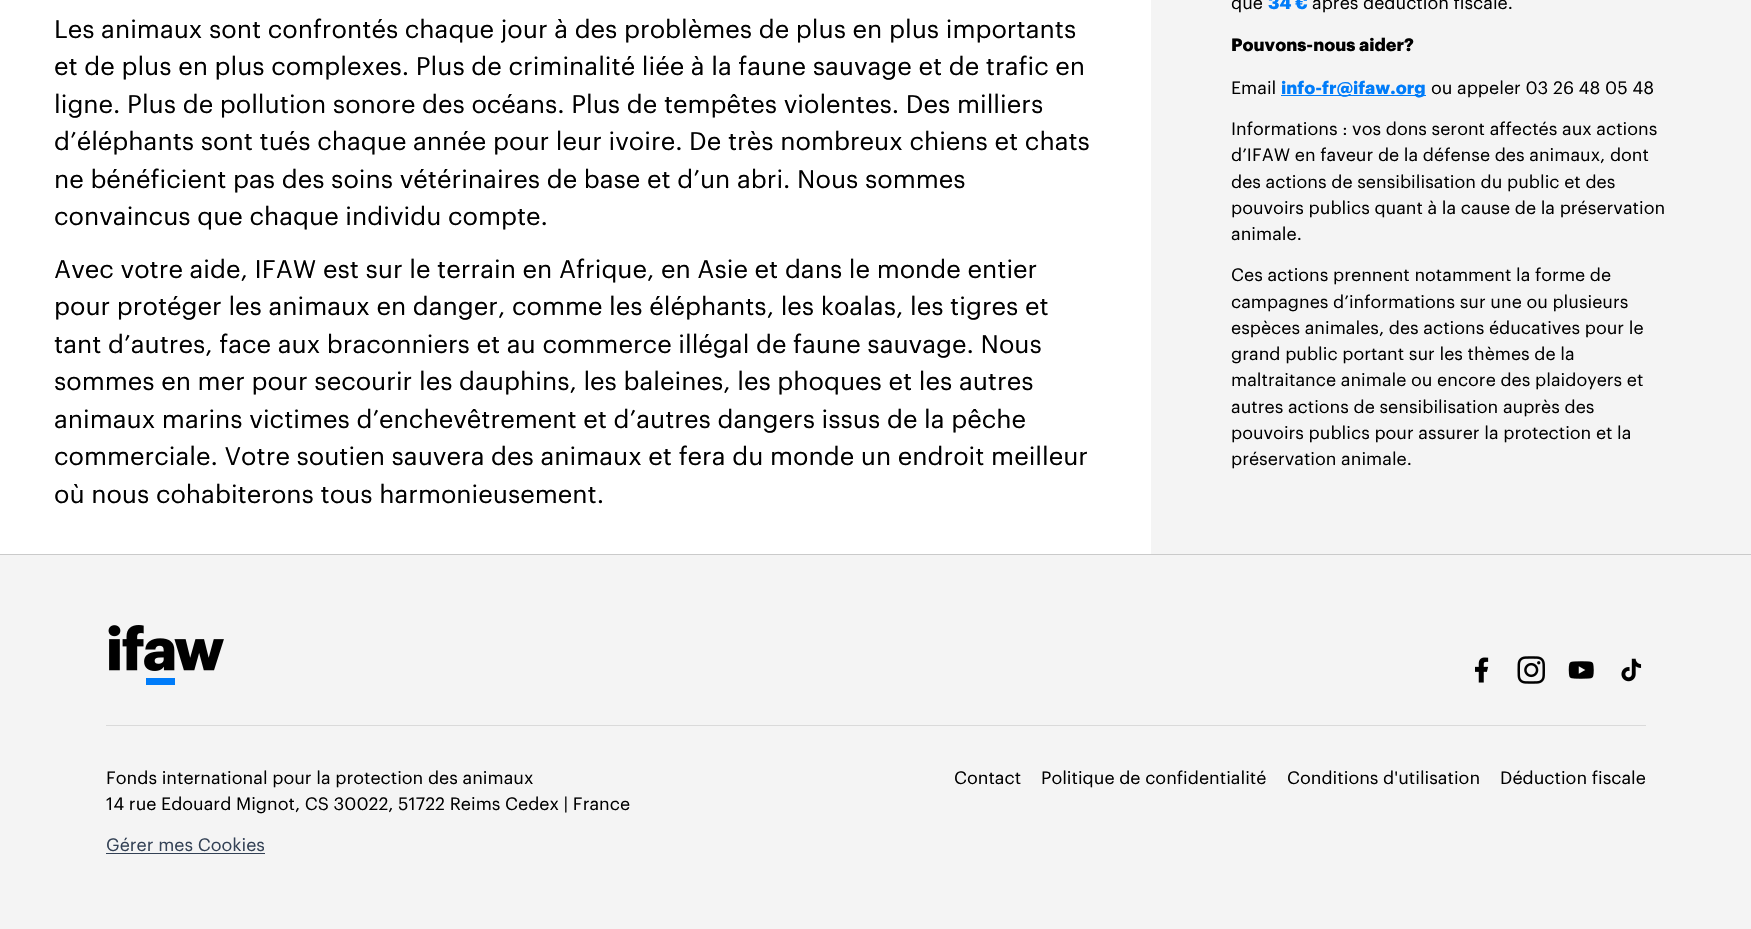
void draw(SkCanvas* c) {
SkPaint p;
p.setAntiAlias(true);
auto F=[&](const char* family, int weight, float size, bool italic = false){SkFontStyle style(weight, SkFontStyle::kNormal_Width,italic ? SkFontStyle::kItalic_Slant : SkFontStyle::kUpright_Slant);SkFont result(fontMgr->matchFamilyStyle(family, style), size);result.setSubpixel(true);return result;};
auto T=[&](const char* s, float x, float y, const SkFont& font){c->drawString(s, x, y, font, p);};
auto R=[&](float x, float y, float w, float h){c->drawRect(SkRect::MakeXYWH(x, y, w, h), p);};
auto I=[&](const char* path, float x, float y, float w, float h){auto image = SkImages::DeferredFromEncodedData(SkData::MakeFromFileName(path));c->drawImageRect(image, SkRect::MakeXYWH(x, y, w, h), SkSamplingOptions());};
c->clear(0xffffffff);
auto f1 = F("Graphik",400,25);
p.setColor(0xff000000);
T("Les animaux sont confrontés chaque jour à des problèmes de plus en plus importants",54,38,f1);
T("et de plus en plus complexes. Plus de criminalité liée à la faune sauvage et de trafic en",54,75,f1);
T("ligne. Plus de pollution sonore des océans. Plus de tempêtes violentes. Des milliers",54,113,f1);
T("d’éléphants sont tués chaque année pour leur ivoire. De très nombreux chiens et chats",54,150,f1);
T("ne bénéficient pas des soins vétérinaires de base et d’un abri. Nous sommes",54,188,f1);
T("convaincus que chaque individu compte.",54,225,f1);
T("Avec votre aide, IFAW est sur le terrain en Afrique, en Asie et dans le monde entier",54,278,f1);
T("pour protéger les animaux en danger, comme les éléphants, les koalas, les tigres et",54,315,f1);
T("tant d’autres, face aux braconniers et au commerce illégal de faune sauvage. Nous",54,353,f1);
T("sommes en mer pour secourir les dauphins, les baleines, les phoques et les autres",54,390,f1);
T("animaux marins victimes d’enchevêtrement et d’autres dangers issus de la pêche",54,428,f1);
T("commerciale. Votre soutien sauvera des animaux et fera du monde un endroit meilleur",54,465,f1);
T("où nous cohabiterons tous harmonieusement.",54,503,f1);
p.setColor(0xfff4f4f4);
R(1151,0,600,554);
auto f2 = F("Graphik",400,17.5);
p.setColor(0xff000000);
T("que",1231,9,f2);
auto f3 = F("Graphik",700,17.5);
p.setColor(0xff007cf9);
T("34 €",1268,9,f3);
p.setColor(0xff000000);
T("après déduction fiscale.",1312,9,f2);
T("Pouvons-nous aider?",1231,51,f3);
T("Email",1231,94,f2);
p.setColor(0xff007cf9);
R(1281,95,145,1);
T("info-fr@ifaw.org",1281,94,f3);
p.setColor(0xff000000);
T("ou appeler 03 26 48 05 48",1431,94,f2);
T("Informations : vos dons seront affectés aux actions",1231,135,f2);
T("d’IFAW en faveur de la défense des animaux, dont",1231,161,f2);
T("des actions de sensibilisation du public et des",1231,188,f2);
T("pouvoirs publics quant à la cause de la préservation",1231,214,f2);
T("animale.",1231,240,f2);
T("Ces actions prennent notamment la forme de",1231,281,f2);
T("campagnes d’informations sur une ou plusieurs",1231,308,f2);
T("espèces animales, des actions éducatives pour le",1231,334,f2);
T("grand public portant sur les thèmes de la",1231,360,f2);
T("maltraitance animale ou encore des plaidoyers et",1231,386,f2);
T("autres actions de sensibilisation auprès des",1231,413,f2);
T("pouvoirs publics pour assurer la protection et la",1231,439,f2);
T("préservation animale.",1231,465,f2);
p.setColor(0xfff4f4f4);
R(0,555,1751,374);
p.setColor(0xffcacaca);
R(0,554,1751,1);
p.setColor(0xffdadada);
R(106,725,1540,1);
I("1.png",108,625,116,60);
I("2.png",1475,657,14,26);
I("3.png",1517,656,28,28);
I("4.png",1568,661,26,18);
I("5.png",1621,658,21,24);
p.setColor(0xff000000);
T("Fonds international pour la protection des animaux",106,784,f2);
T("14 rue Edouard Mignot, CS 30022, 51722 Reims Cedex | France",106,810,f2);
p.setColor(0xff334155);
T("Gérer mes Cookies",106,851,f2);
R(106,853,159,1);
p.setColor(0xff000000);
T("Contact",954,784,f2);
T("Politique de confidentialité",1041,784,f2);
T("Conditions d'utilisation",1287,784,f2);
T("Déduction fiscale",1500,784,f2);
}
